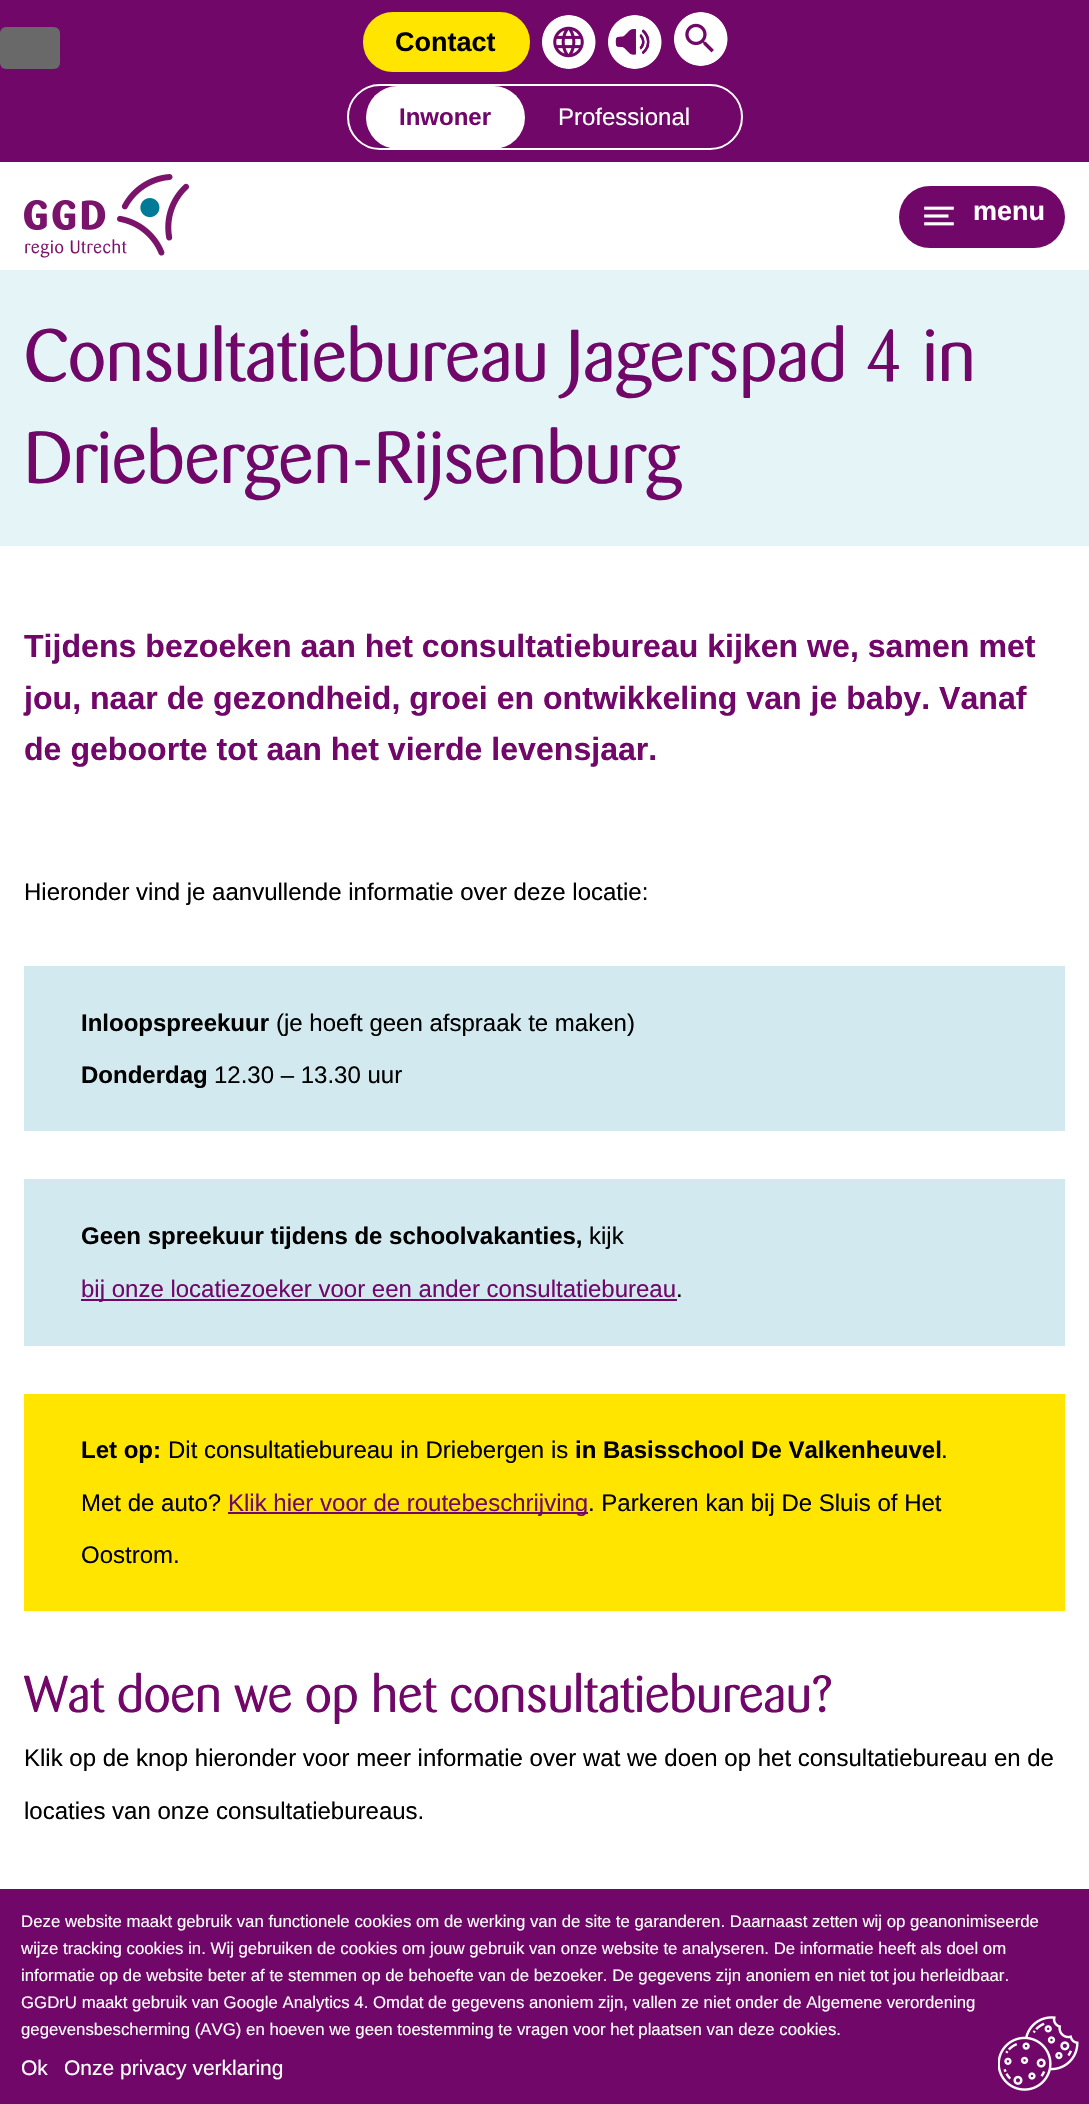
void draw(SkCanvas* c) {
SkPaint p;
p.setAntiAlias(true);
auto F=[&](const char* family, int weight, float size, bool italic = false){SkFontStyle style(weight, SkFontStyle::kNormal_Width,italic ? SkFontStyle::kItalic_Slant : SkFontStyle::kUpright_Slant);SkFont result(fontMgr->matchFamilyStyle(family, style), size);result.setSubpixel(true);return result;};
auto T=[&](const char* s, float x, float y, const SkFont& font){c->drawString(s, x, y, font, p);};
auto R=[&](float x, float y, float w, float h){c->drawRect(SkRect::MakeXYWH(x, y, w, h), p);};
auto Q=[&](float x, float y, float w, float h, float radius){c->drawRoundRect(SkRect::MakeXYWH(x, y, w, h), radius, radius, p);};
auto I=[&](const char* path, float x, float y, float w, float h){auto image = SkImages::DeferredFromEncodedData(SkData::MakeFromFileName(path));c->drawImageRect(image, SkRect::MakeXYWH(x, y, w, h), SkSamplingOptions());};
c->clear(0xffffffff);
p.setColor(0xff700769);
R(0,0,1089,162);
p.setColor(0xff696969);
Q(0,27,60,42,6);
p.setColor(0xffffe500);
c->drawRoundRect(SkRect::MakeXYWH(366,15,161,54),27,27,p);
p.setStroke(true);
p.setStrokeWidth(6);
c->drawRoundRect(SkRect::MakeXYWH(366,15,161,54),27,27,p);
auto f1 = F("Liberation Sans",700,27);
p.setStroke(false);
p.setColor(0xff000000);
T("Contact",395,51,f1);
I("1.png",542,15,54,54);
I("2.png",608,15,54,54);
I("3.png",674,12,54,54);
p.setStroke(true);
p.setStrokeWidth(2);
p.setColor(0xffffffff);
c->drawRoundRect(SkRect::MakeXYWH(348,85,394,64),32,32,p);
p.setStroke(false);
Q(366,86,159,63,31.5);
auto f2 = F("Liberation Sans",700,24);
p.setColor(0xff700769);
T("Inwoner",399,125,f2);
auto f3 = F("Liberation Sans",400,24);
p.setColor(0xffffffff);
T("Professional",558,125,f3);
I("4.png",24,174,165,84);
p.setColor(0xff700769);
Q(899,186,166,62,31);
I("5.png",924,206,30,20);
p.setColor(0xffffffff);
T("menu",973,220,f1);
p.setColor(0xffe5f4f6);
R(0,270,1089,276);
auto f4 = F("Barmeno",400,72.75);
p.setColor(0xff700769);
T("Consultatiebureau Jagerspad 4 in",24,381,f4);
T("Driebergen-Rijsenburg",24,483,f4);
auto f5 = F("Liberation Sans",700,32.1);
T("Tijdens bezoeken aan het consultatiebureau kijken we, samen met",24,657,f5);
T("jou, naar de gezondheid, groei en ontwikkeling van je baby. Vanaf",24,709,f5);
T("de geboorte tot aan het vierde levensjaar.",24,760,f5);
p.setColor(0xff000000);
T("Hieronder vind je aanvullende informatie over deze locatie:",24,900,f3);
p.setColor(0xffd1e9ef);
R(24,966,1041,165);
p.setColor(0xff000000);
T("Inloopspreekuur",81,1031,f2);
T("(je hoeft geen afspraak te maken)",276,1031,f3);
T("Donderdag",81,1083,f2);
T("12.30 – 13.30 uur",214,1083,f3);
p.setColor(0xffd1e9ef);
R(24,1179,1041,167);
p.setColor(0xff000000);
T("Geen spreekuur tijdens de schoolvakanties,",81,1244,f2);
T("kijk",589,1244,f3);
p.setColor(0xff700769);
R(81,1299,596,2);
T("bij onze locatiezoeker voor een ander consultatiebureau",81,1297,f3);
p.setColor(0xff000000);
T(".",676,1297,f3);
p.setColor(0xffffe500);
R(24,1394,1041,217);
p.setColor(0xff000000);
T("Let op:",81,1458,f2);
T("Dit consultatiebureau in Driebergen is",168,1458,f3);
T("in Basisschool De Valkenheuvel",575,1458,f2);
T(".",941,1458,f3);
T("Met de auto?",81,1511,f3);
p.setColor(0xff700769);
R(228,1512,360,2);
T("Klik hier voor de routebeschrijving",228,1511,f3);
p.setColor(0xff000000);
T(". Parkeren kan bij De Sluis of Het",588,1511,f3);
T("Oostrom.",81,1563,f3);
auto f6 = F("Barmeno",400,51.3);
p.setColor(0xff700769);
T("Wat doen we op het consultatiebureau?",24,1712,f6);
p.setColor(0xff000000);
T("Klik op de knop hieronder voor meer informatie over wat we doen op het consultatiebureau en de",24,1766,f3);
T("locaties van onze consultatiebureaus.",24,1819,f3);
p.setColor(0xff700769);
R(0,1889,1089,215);
auto f7 = F("Liberation Sans",400,16.8);
p.setColor(0xffffffff);
T("Deze website maakt gebruik van functionele cookies om de werking van de site te garanderen. Daarnaast zetten wij op geanonimiseerde",21,1927,f7);
T("wijze tracking cookies in. Wij gebruiken de cookies om jouw gebruik van onze website te analyseren. De informatie heeft als doel om",21,1954,f7);
T("informatie op de website beter af te stemmen op de behoefte van de bezoeker. De gegevens zijn anoniem en niet tot jou herleidbaar.",21,1981,f7);
T("GGDrU maakt gebruik van Google Analytics 4. Omdat de gegevens anoniem zijn, vallen ze niet onder de Algemene verordening",21,2008,f7);
T("gegevensbescherming (AVG) en hoeven we geen toestemming te vragen voor het plaatsen van deze cookies.",21,2035,f7);
auto f8 = F("Liberation Sans",400,21);
T("Ok",21,2075,f8);
T("Onze privacy verklaring",64,2075,f8);
I("6.png",998,2016,81,75);
}
